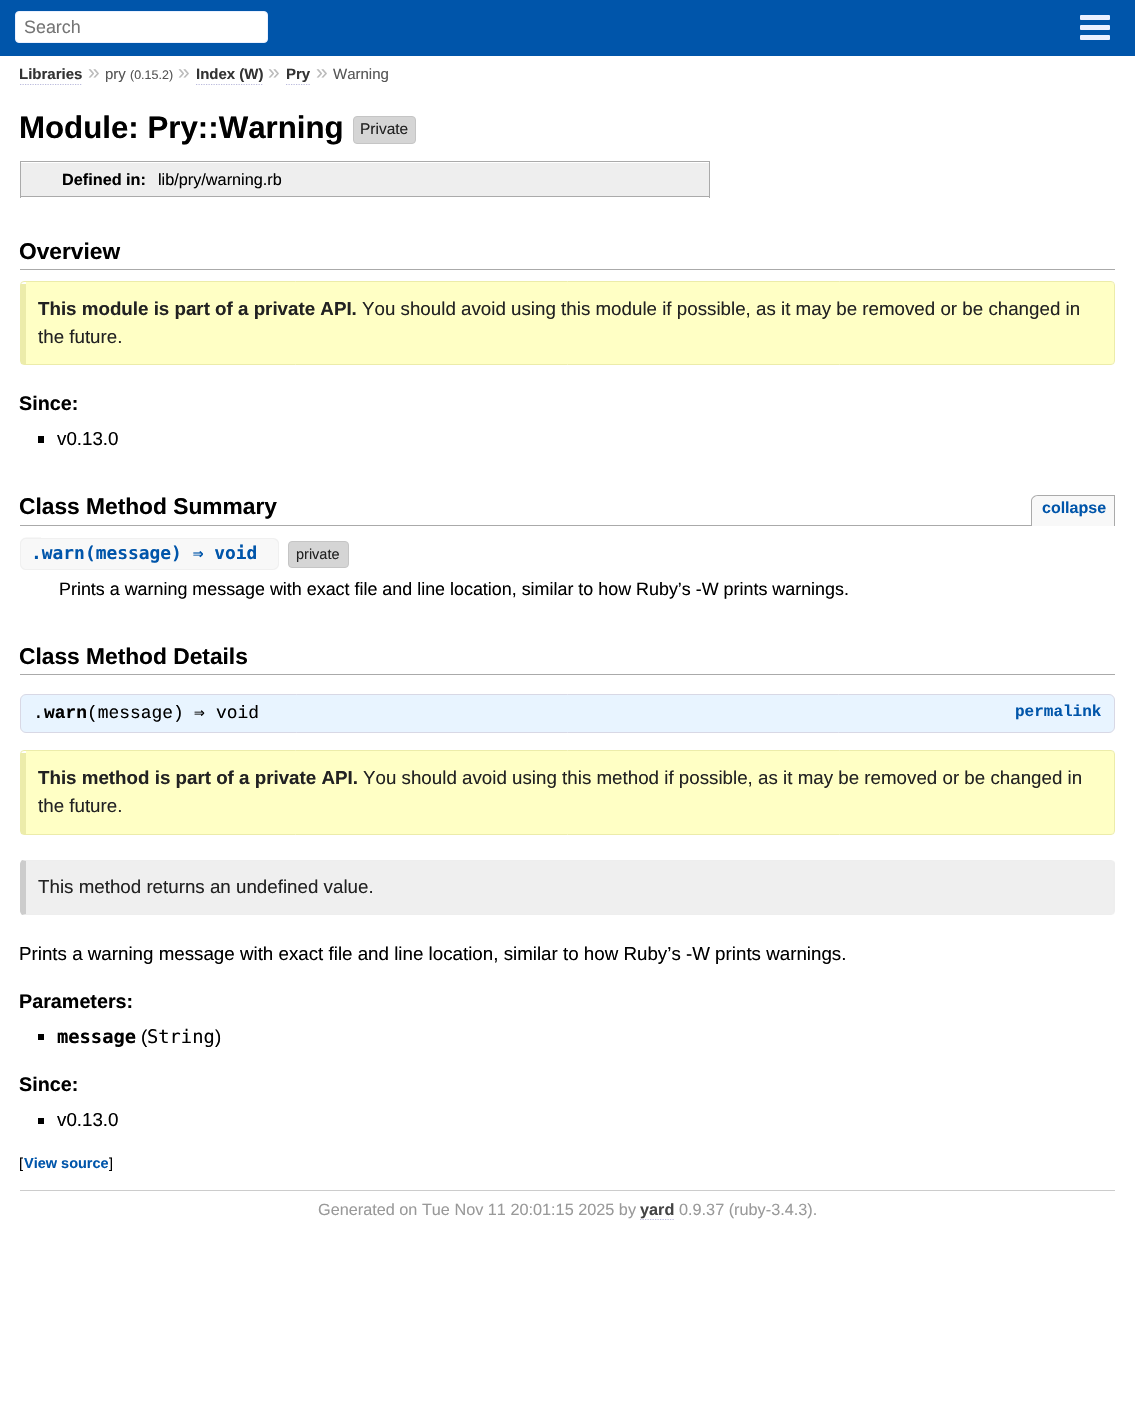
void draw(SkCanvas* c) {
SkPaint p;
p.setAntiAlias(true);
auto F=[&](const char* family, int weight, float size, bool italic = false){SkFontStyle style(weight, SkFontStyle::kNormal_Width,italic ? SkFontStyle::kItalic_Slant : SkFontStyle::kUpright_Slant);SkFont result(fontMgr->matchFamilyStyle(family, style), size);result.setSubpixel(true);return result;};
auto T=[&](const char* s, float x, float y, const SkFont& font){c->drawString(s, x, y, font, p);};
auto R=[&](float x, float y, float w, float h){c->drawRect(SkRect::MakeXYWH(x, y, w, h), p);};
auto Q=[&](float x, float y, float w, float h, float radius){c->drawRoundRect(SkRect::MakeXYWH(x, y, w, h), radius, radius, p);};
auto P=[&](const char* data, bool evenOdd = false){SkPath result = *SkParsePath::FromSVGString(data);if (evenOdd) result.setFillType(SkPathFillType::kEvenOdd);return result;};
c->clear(0xffffffff);
p.setColor(0xff0055aa);
R(0,0,1135,56);
p.setColor(0xffffffff);
c->drawRoundRect(SkRect::MakeXYWH(15.5,11.5,252,31),3.5,3.5,p);
p.setStroke(true);
p.setStrokeWidth(1);
p.setColor(0xffeaf0ff);
c->drawRoundRect(SkRect::MakeXYWH(15.5,11.5,252,31),3.5,3.5,p);
auto f1 = F("Liberation Sans",400,17.9);
p.setStroke(false);
p.setColor(0xff757575);
T("Search",24,33,f1);
p.setColor(0xffeaf0ff);
Q(1080,15,30,5,1);
Q(1080,25,30,5,1);
Q(1080,35,30,5,1);
auto f2 = F("Liberation Sans",700,15);
p.setColor(0xff333333);
T("Libraries",19,79,f2);
p.setStroke(true);
p.setStrokeWidth(1.2);
p.setColor(0xffbbbbdd);
p.setPathEffect(SkDashPathEffect::Make({{1.25f,1.25f}}, 0));
c->drawPath(P("M20 84.5h62.5"),p);
p.setPathEffect(nullptr);
auto f3 = F("Liberation Sans",400,21);
p.setStroke(false);
p.setColor(0xffbbbbbb);
T("»",88,79,f3);
auto f4 = F("Liberation Sans",400,15);
p.setColor(0xff555555);
T("pry",105,79,f4);
auto f5 = F("Liberation Sans",400,12.5);
T("(0.15.2)",130,79,f5);
p.setColor(0xffbbbbbb);
T("»",178,79,f3);
p.setColor(0xff333333);
T("Index (W)",196,79,f2);
p.setStroke(true);
p.setColor(0xffbbbbdd);
p.setPathEffect(SkDashPathEffect::Make({{1.25f,1.25f}}, 0));
c->drawPath(P("M196 84.5h66.5"),p);
p.setPathEffect(nullptr);
p.setStroke(false);
p.setColor(0xffbbbbbb);
T("»",268,79,f3);
p.setColor(0xff333333);
T("Pry",286,79,f2);
p.setStroke(true);
p.setColor(0xffbbbbdd);
p.setPathEffect(SkDashPathEffect::Make({{1.25f,1.25f}}, 0));
c->drawPath(P("M286 84.5h24"),p);
p.setPathEffect(nullptr);
p.setStroke(false);
p.setColor(0xffbbbbbb);
T("»",316,79,f3);
p.setColor(0xff555555);
T("Warning",333,79,f4);
auto f6 = F("Liberation Sans",700,31.25);
p.setColor(0xff000000);
T("Module: Pry::Warning",19,138,f6);
p.setColor(0xffd5d5d5);
c->drawRoundRect(SkRect::MakeXYWH(353.5,116.5,62,27),3.5,3.5,p);
p.setStroke(true);
p.setStrokeWidth(1);
p.setColor(0xffc5c5c5);
c->drawRoundRect(SkRect::MakeXYWH(353.5,116.5,62,27),3.5,3.5,p);
auto f7 = F("Liberation Sans",400,15.5);
p.setStroke(false);
p.setColor(0xff222222);
T("Private",360,134,f7);
p.setColor(0xffeeeeee);
R(21,163,688,33);
p.setColor(0xffaaaaaa);
R(20,161,690,1);
R(20,196,139,1);
R(20,161,1,37);
auto f8 = F("Liberation Sans",700,16.25);
p.setColor(0xff000000);
T("Defined in:",62,185,f8);
p.setColor(0xffaaaaaa);
R(709,161,1,37);
R(159,196,551,1);
auto f9 = F("Liberation Sans",400,16.25);
p.setColor(0xff000000);
T("lib/pry/warning.rb",158,185,f9);
p.setColor(0xffaaaaaa);
R(20,269,1095,1);
auto f10 = F("Liberation Sans",700,22.75);
p.setColor(0xff000000);
T("Overview",19,259,f10);
p.setColor(0xffffffc5);
c->drawPath(P("M26 282h1085c2 0 3 2 3 3v76c0 2-1 3-3 3h-1085z"),p);
p.setStroke(true);
p.setColor(0xffececaa);
c->drawRoundRect(SkRect::MakeXYWH(20.5,281.5,1094,83),3.5,3.5,p);
p.setStroke(false);
R(21,284,5,80);
auto f11 = F("Liberation Sans",700,18.75);
p.setColor(0xff222222);
T("This module is part of a private API.",38,315,f11);
auto f12 = F("Liberation Sans",400,18.75);
T("You should avoid using this module if possible, as it may be removed or be changed in",362,315,f12);
T("the future.",38,343,f12);
auto f13 = F("Liberation Sans",700,19.75);
p.setColor(0xff000000);
T("Since:",19,410,f13);
R(38,436,6,7);
T("v0.13.0",57,445,f12);
p.setColor(0xffaaaaaa);
R(20,525,1011,1);
p.setColor(0xff000000);
T("Class Method Summary",19,514,f10);
p.setColor(0xfff8f8f8);
c->drawPath(P("M1037 495h78v31h-84v-25c0-3.5 2.5-6 6-6z"),p);
p.setColor(0xffaaaaaa);
c->drawPath(P("M1038 495h77v31h-84v-25c0-3 3-6 7-6zm0 1h76v30h-82v-25c0-3 3-5 6-5z",true),p);
auto f14 = F("Liberation Sans",700,16);
p.setColor(0xff0055aa);
T("collapse",1042,513,f14);
p.setColor(0xfff8f8f8);
c->drawPath(P("M26 538h15v32h-15c-3.5 0-6-2.5-6-6v-20c0-3.5 2.5-6 6-6z"),p);
p.setColor(0xfff0f0f0);
c->drawPath(P("M26 537.5h15v32.5h-15c-3 0-6-3-6-6v-20c0-3.5 3-6.5 6-6.5zm0 1.5h15v30h-15c-2.5 0-5-2.5-5-5v-20c0-3 2.5-5 5-5z",true),p);
p.setColor(0xfff8f8f8);
R(41,539,44,30);
c->drawPath(P("M85 538h188c3.5 0 6 2.5 6 6v20c0 3.5-2.5 6-6 6h-188z"),p);
p.setColor(0xfff0f0f0);
c->drawPath(P("M85 538h187c4 0 7 2 7 6v20c0 3-3 6-7 6h-187zm0 1h187c3 0 6 2 6 5v20c0 3-3 5-6 5h-187z",true),p);
auto f15 = F("DejaVu Sans Mono",700,17.9);
p.setColor(0xff0055aa);
T(".warn(message) ⇒ void",31,559,f15);
p.setColor(0xfff0f0f0);
R(41,538,44,1);
R(41,569,44,1);
p.setColor(0xffd5d5d5);
c->drawRoundRect(SkRect::MakeXYWH(288.5,541.5,60,26),3.5,3.5,p);
p.setStroke(true);
p.setColor(0xffc5c5c5);
c->drawRoundRect(SkRect::MakeXYWH(288.5,541.5,60,26),3.5,3.5,p);
auto f16 = F("Liberation Sans",400,14.5);
p.setStroke(false);
p.setColor(0xff222222);
T("private",296,559,f16);
p.setColor(0xff000000);
T("Prints a warning message with exact file and line location, similar to how Ruby’s -W prints warnings.",59,595,f1);
p.setColor(0xffaaaaaa);
R(20,674,1095,1);
p.setColor(0xff000000);
T("Class Method Details",19,664,f10);
p.setColor(0xffe8f4ff);
c->drawRoundRect(SkRect::MakeXYWH(20.5,694.5,1094,38),5.5,5.5,p);
p.setStroke(true);
p.setColor(0xffd8d8e5);
c->drawRoundRect(SkRect::MakeXYWH(20.5,694.5,1094,38),5.5,5.5,p);
auto f17 = F("Liberation Mono",700,17.9);
p.setStroke(false);
p.setColor(0xff000000);
T("warn",44,718,f17);
auto f18 = F("Liberation Mono",400,17.9);
T("(message)",87,718,f18);
auto f19 = F("DejaVu Sans Mono",400,17.9);
T("⇒",194,718,f19);
T("void",216,718,f18);
auto f20 = F("Liberation Mono",700,16);
p.setColor(0xff0055aa);
T("permalink",1015,716,f20);
p.setColor(0xff000000);
T(".",33,718,f18);
p.setColor(0xffffffc5);
c->drawPath(P("M26 751h1085c2 0 3 1 3 3v77c0 2-1 3-3 3h-1085z"),p);
p.setStroke(true);
p.setColor(0xffececaa);
c->drawRoundRect(SkRect::MakeXYWH(20.5,750.5,1094,84),3.5,3.5,p);
p.setStroke(false);
R(21,753,5,81);
p.setColor(0xff222222);
T("This method is part of a private API.",38,784,f11);
T("You should avoid using this method if possible, as it may be removed or be changed in",363,784,f12);
T("the future.",38,812,f12);
p.setColor(0xffefefef);
c->drawPath(P("M26 861h1085c2 0 3 1 3 3v47c0 2-1 3-3 3h-1085z"),p);
p.setColor(0xffeeeeee);
c->drawPath(P("M24 860h-2l4 1h1085l2 1l1-1l-3-1z"),p);
c->drawPath(P("M1115 911v-48l-1-2l-1 1c1 1 1 50 0 51l1 1z"),p);
c->drawPath(P("M24 915h1087l3-1l-1-1l-2 1h-1085l-4 1z"),p);
p.setColor(0xffcccccc);
c->drawPath(P("M20 864v47c0 1 1 3 2 4l4-1v-53l-4-1c-1 1-2 3-2 4z"),p);
p.setColor(0xff222222);
T("This method returns an undefined value.",38,893,f12);
p.setColor(0xff000000);
T("Prints a warning message with exact file and line location, similar to how Ruby’s -W prints warnings.",19,960,f12);
T("Parameters:",19,1008,f13);
R(38,1034,6,6);
auto f21 = F("DejaVu Sans Mono",700,18.75);
T("message",57,1043,f21);
T("(",141,1043,f12);
auto f22 = F("DejaVu Sans Mono",400,18.75);
T("String",147,1043,f22);
T(")",215,1043,f12);
T("Since:",19,1091,f13);
R(38,1118,6,6);
T("v0.13.0",57,1126,f12);
T("[",19,1168,f16);
auto f23 = F("Liberation Sans",700,14.5);
p.setColor(0xff0055aa);
T("View source",24,1168,f23);
p.setColor(0xff000000);
T("]",109,1168,f16);
p.setColor(0xffcccccc);
R(20,1190,1095,1);
p.setColor(0xff999999);
T("Generated on Tue Nov 11 20:01:15 2025 by",318,1215,f9);
p.setStroke(true);
p.setStrokeWidth(1.2);
p.setColor(0xffbbbbdd);
p.setPathEffect(SkDashPathEffect::Make({{1.25f,1.25f}}, 0));
c->drawPath(P("M640 1219.5h35"),p);
p.setPathEffect(nullptr);
p.setStroke(false);
p.setColor(0xff444444);
T("yard",640,1215,f8);
p.setColor(0xff999999);
T("0.9.37 (ruby-3.4.3).",679,1215,f9);
}
